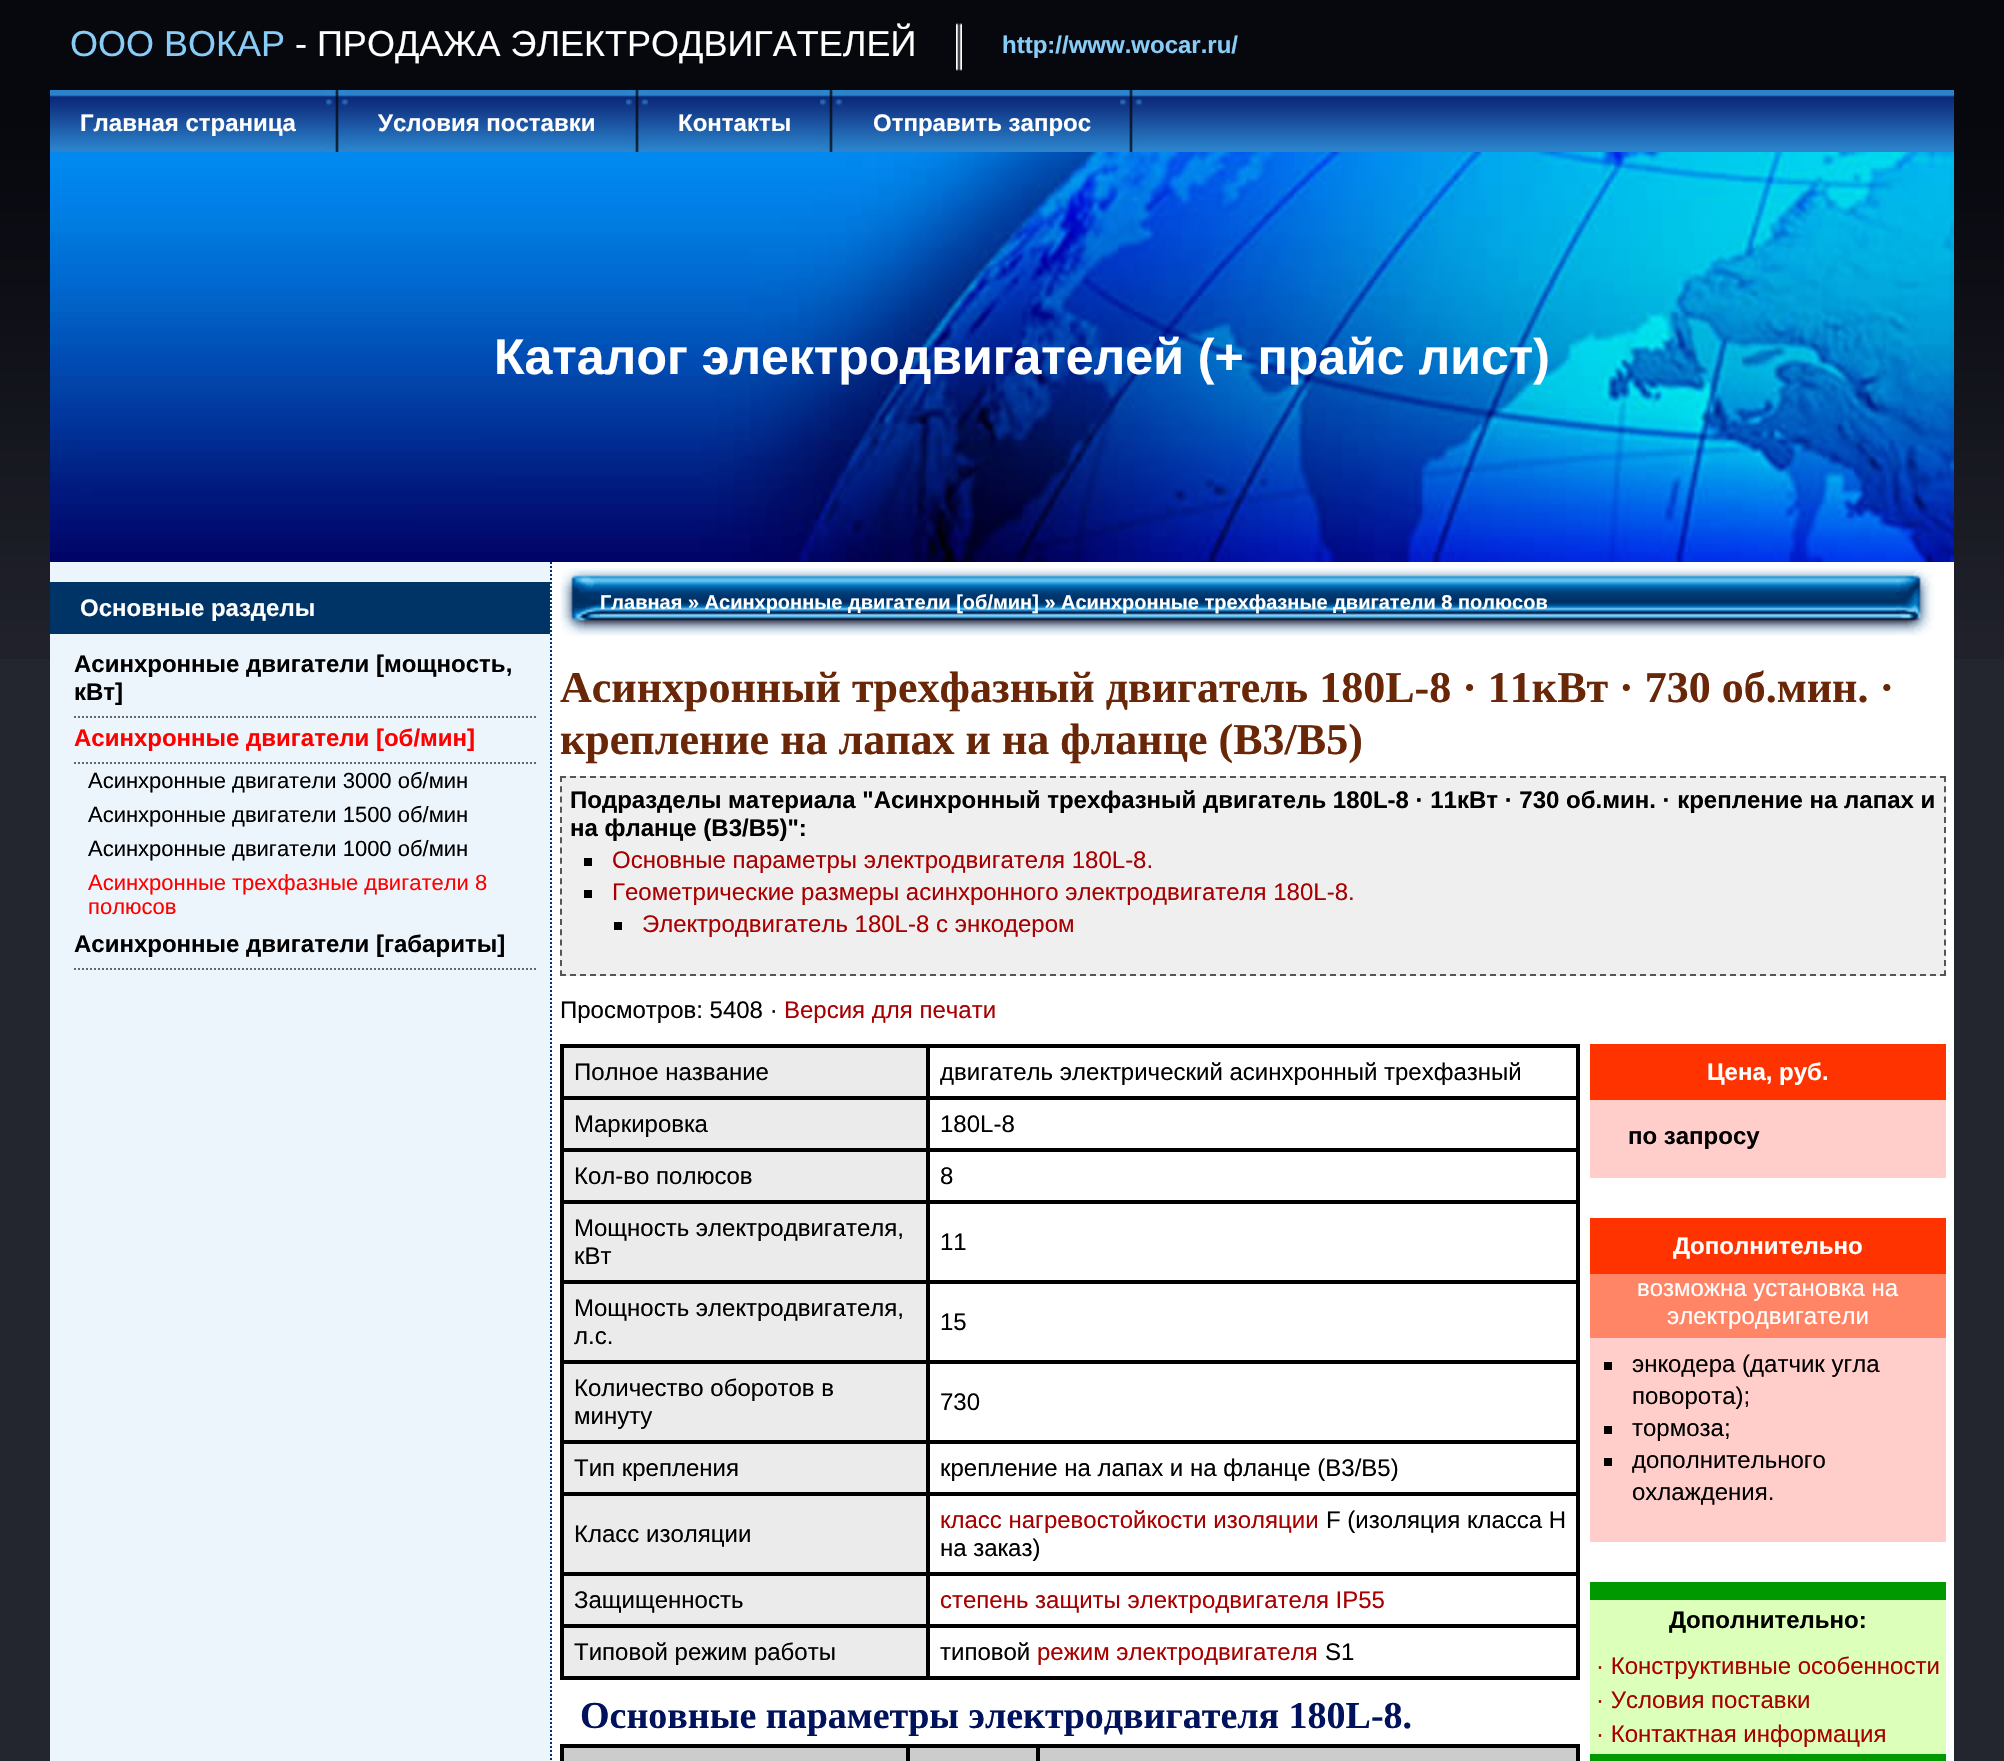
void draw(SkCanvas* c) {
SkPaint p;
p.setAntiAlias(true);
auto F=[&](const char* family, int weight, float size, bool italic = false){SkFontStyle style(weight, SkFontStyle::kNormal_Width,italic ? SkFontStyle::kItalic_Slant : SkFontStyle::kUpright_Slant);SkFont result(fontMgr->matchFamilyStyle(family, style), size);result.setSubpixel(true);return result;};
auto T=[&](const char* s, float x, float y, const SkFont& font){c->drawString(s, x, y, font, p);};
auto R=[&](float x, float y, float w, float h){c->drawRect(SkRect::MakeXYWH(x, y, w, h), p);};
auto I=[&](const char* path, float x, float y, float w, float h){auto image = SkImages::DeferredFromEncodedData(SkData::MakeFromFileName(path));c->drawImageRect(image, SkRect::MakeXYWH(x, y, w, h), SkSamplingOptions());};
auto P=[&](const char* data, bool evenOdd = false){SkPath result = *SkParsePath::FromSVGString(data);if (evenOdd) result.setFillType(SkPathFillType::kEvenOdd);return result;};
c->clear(0xff24262f);
I("1.png",0,0,2004,659);
auto f1 = F("Liberation Sans",400,36);
p.setColor(0xff88cdf7);
T("ООО ВОКАР",70,56,f1);
p.setColor(0xffffffff);
T("- ПРОДАЖА ЭЛЕКТРОДВИГАТЕЛЕЙ",295,56,f1);
I("2.png",956,23,6,48);
auto f2 = F("Liberation Sans",700,24);
p.setColor(0xff88cdf7);
T("http://www.wocar.ru/",1002,53,f2);
p.setColor(0xff2b82ca);
R(50,90,1904,62);
I("3.png",50,95,1904,52);
p.setColor(0xffffffff);
T("Главная страница",80,131,f2);
I("4.png",326,90,22,62);
T("Условия поставки",378,131,f2);
I("4.png",626,90,22,62);
T("Контакты",678,131,f2);
I("4.png",820,90,22,62);
T("Отправить запрос",873,131,f2);
I("4.png",1120,90,22,62);
I("5.png",50,152,1904,410);
auto f3 = F("Liberation Sans",700,50);
T("Каталог электродвигателей (+ прайс лист)",494,374,f3);
R(552,562,1402,1199);
p.setColor(0xffedf5fc);
R(50,562,502,1199);
p.setStroke(true);
p.setStrokeWidth(2);
p.setColor(0xff003366);
p.setPathEffect(SkDashPathEffect::Make({{2,2}}, 0));
c->drawPath(P("M551 562v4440"),p);
p.setPathEffect(nullptr);
p.setStroke(false);
R(50,582,500,52);
p.setColor(0xffffffff);
T("Основные разделы",80,616,f2);
p.setStroke(true);
p.setColor(0xff666666);
p.setPathEffect(SkDashPathEffect::Make({{2,2}}, 0));
c->drawPath(P("M74 717h462"),p);
p.setPathEffect(nullptr);
p.setStroke(false);
p.setColor(0xff000000);
T("Асинхронные двигатели [мощность,",74,672,f2);
T("кВт]",74,700,f2);
p.setStroke(true);
p.setColor(0xff666666);
p.setPathEffect(SkDashPathEffect::Make({{2,2}}, 0));
c->drawPath(P("M74 763h462"),p);
p.setPathEffect(nullptr);
p.setStroke(false);
p.setColor(0xffff0000);
T("Асинхронные двигатели [об/мин]",74,746,f2);
auto f4 = F("Liberation Sans",400,22);
p.setColor(0xff000000);
T("Асинхронные двигатели 3000 об/мин",88,788,f4);
T("Асинхронные двигатели 1500 об/мин",88,822,f4);
T("Асинхронные двигатели 1000 об/мин",88,856,f4);
p.setColor(0xffff0000);
T("Асинхронные трехфазные двигатели 8",88,890,f4);
T("полюсов",88,914,f4);
p.setStroke(true);
p.setColor(0xff666666);
p.setPathEffect(SkDashPathEffect::Make({{2,2}}, 0));
c->drawPath(P("M74 969h462"),p);
p.setPathEffect(nullptr);
p.setStroke(false);
p.setColor(0xff000000);
T("Асинхронные двигатели [габариты]",74,952,f2);
I("6.png",560,568,40,68);
I("7.png",600,568,1296,68);
auto f5 = F("Liberation Sans",700,20);
p.setColor(0xffffffff);
T("Главная » Асинхронные двигатели [об/мин] » Асинхронные трехфазные двигатели 8 полюсов",600,609,f5);
I("8.png",1896,568,38,68);
auto f6 = F("Liberation Serif",700,44);
p.setColor(0xff692707);
T("Асинхронный трехфазный двигатель 180L-8 · 11кВт · 730 об.мин. ·",560,702,f6);
T("крепление на лапах и на фланце (B3/B5)",560,754,f6);
p.setColor(0xffefefef);
R(560,776,1386,200);
p.setStroke(true);
p.setColor(0xff555555);
p.setPathEffect(SkDashPathEffect::Make({{6,4}}, 0));
c->drawPath(P("M560 777h1386"),p);
p.setPathEffect(nullptr);
p.setPathEffect(SkDashPathEffect::Make({{6,4.22f}}, 0));
c->drawPath(P("M1945 776v200"),p);
p.setPathEffect(nullptr);
p.setPathEffect(SkDashPathEffect::Make({{6,4}}, 0));
c->drawPath(P("M560 975h1386"),p);
p.setPathEffect(nullptr);
p.setPathEffect(SkDashPathEffect::Make({{6,4.22f}}, 0));
c->drawPath(P("M561 776v200"),p);
p.setPathEffect(nullptr);
p.setStroke(false);
p.setColor(0xff000000);
T("Подразделы материала \"Асинхронный трехфазный двигатель 180L-8 · 11кВт · 730 об.мин. · крепление на лапах и",570,808,f2);
T("на фланце (B3/B5)\":",570,836,f2);
R(584,858,8,8);
auto f7 = F("Liberation Sans",400,24);
p.setColor(0xffa80000);
T("Основные параметры электродвигателя 180L-8.",612,868,f7);
p.setColor(0xff000000);
R(584,890,8,8);
p.setColor(0xffa80000);
T("Геометрические размеры асинхронного электродвигателя 180L-8.",612,900,f7);
p.setColor(0xff000000);
R(614,922,8,8);
p.setColor(0xffa80000);
T("Электродвигатель 180L-8 с энкодером",642,932,f7);
p.setColor(0xff000000);
T("Просмотров: 5408 ·",560,1018,f7);
p.setColor(0xffa80000);
T("Версия для печати",784,1018,f7);
p.setStroke(true);
p.setColor(0xff000000);
c->drawRect(SkRect::MakeXYWH(561,1045,1018,634),p);
p.setStroke(false);
p.setColor(0xffebebeb);
c->drawRect(SkRect::MakeXYWH(563,1047,364,50),p);
p.setStroke(true);
p.setColor(0xff000000);
c->drawRect(SkRect::MakeXYWH(563,1047,364,50),p);
p.setStroke(false);
T("Полное название",574,1080,f7);
p.setStroke(true);
c->drawRect(SkRect::MakeXYWH(929,1047,648,50),p);
p.setStroke(false);
T("двигатель электрический асинхронный трехфазный",940,1080,f7);
p.setColor(0xffebebeb);
c->drawRect(SkRect::MakeXYWH(563,1099,364,50),p);
p.setStroke(true);
p.setColor(0xff000000);
c->drawRect(SkRect::MakeXYWH(563,1099,364,50),p);
p.setStroke(false);
T("Маркировка",574,1132,f7);
p.setStroke(true);
c->drawRect(SkRect::MakeXYWH(929,1099,648,50),p);
p.setStroke(false);
T("180L-8",940,1132,f7);
p.setColor(0xffebebeb);
c->drawRect(SkRect::MakeXYWH(563,1151,364,50),p);
p.setStroke(true);
p.setColor(0xff000000);
c->drawRect(SkRect::MakeXYWH(563,1151,364,50),p);
p.setStroke(false);
T("Кол-во полюсов",574,1184,f7);
p.setStroke(true);
c->drawRect(SkRect::MakeXYWH(929,1151,648,50),p);
p.setStroke(false);
T("8",940,1184,f7);
p.setColor(0xffebebeb);
c->drawRect(SkRect::MakeXYWH(563,1203,364,78),p);
p.setStroke(true);
p.setColor(0xff000000);
c->drawRect(SkRect::MakeXYWH(563,1203,364,78),p);
p.setStroke(false);
T("Мощность электродвигателя,",574,1236,f7);
T("кВт",574,1264,f7);
p.setStroke(true);
c->drawRect(SkRect::MakeXYWH(929,1203,648,78),p);
p.setStroke(false);
T("11",940,1250,f7);
p.setColor(0xffebebeb);
c->drawRect(SkRect::MakeXYWH(563,1283,364,78),p);
p.setStroke(true);
p.setColor(0xff000000);
c->drawRect(SkRect::MakeXYWH(563,1283,364,78),p);
p.setStroke(false);
T("Мощность электродвигателя,",574,1316,f7);
T("л.с.",574,1344,f7);
p.setStroke(true);
c->drawRect(SkRect::MakeXYWH(929,1283,648,78),p);
p.setStroke(false);
T("15",940,1330,f7);
p.setColor(0xffebebeb);
c->drawRect(SkRect::MakeXYWH(563,1363,364,78),p);
p.setStroke(true);
p.setColor(0xff000000);
c->drawRect(SkRect::MakeXYWH(563,1363,364,78),p);
p.setStroke(false);
T("Количество оборотов в",574,1396,f7);
T("минуту",574,1424,f7);
p.setStroke(true);
c->drawRect(SkRect::MakeXYWH(929,1363,648,78),p);
p.setStroke(false);
T("730",940,1410,f7);
p.setColor(0xffebebeb);
c->drawRect(SkRect::MakeXYWH(563,1443,364,50),p);
p.setStroke(true);
p.setColor(0xff000000);
c->drawRect(SkRect::MakeXYWH(563,1443,364,50),p);
p.setStroke(false);
T("Тип крепления",574,1476,f7);
p.setStroke(true);
c->drawRect(SkRect::MakeXYWH(929,1443,648,50),p);
p.setStroke(false);
T("крепление на лапах и на фланце (B3/B5)",940,1476,f7);
p.setColor(0xffebebeb);
c->drawRect(SkRect::MakeXYWH(563,1495,364,78),p);
p.setStroke(true);
p.setColor(0xff000000);
c->drawRect(SkRect::MakeXYWH(563,1495,364,78),p);
p.setStroke(false);
T("Класс изоляции",574,1542,f7);
p.setStroke(true);
c->drawRect(SkRect::MakeXYWH(929,1495,648,78),p);
p.setStroke(false);
p.setColor(0xffa80000);
T("класс нагревостойкости изоляции",940,1528,f7);
p.setColor(0xff000000);
T("F (изоляция класса H",1326,1528,f7);
T("на заказ)",940,1556,f7);
p.setColor(0xffebebeb);
c->drawRect(SkRect::MakeXYWH(563,1575,364,50),p);
p.setStroke(true);
p.setColor(0xff000000);
c->drawRect(SkRect::MakeXYWH(563,1575,364,50),p);
p.setStroke(false);
T("Защищенность",574,1608,f7);
p.setStroke(true);
c->drawRect(SkRect::MakeXYWH(929,1575,648,50),p);
p.setStroke(false);
p.setColor(0xffa80000);
T("степень защиты электродвигателя IP55",940,1608,f7);
p.setColor(0xffebebeb);
c->drawRect(SkRect::MakeXYWH(563,1627,364,50),p);
p.setStroke(true);
p.setColor(0xff000000);
c->drawRect(SkRect::MakeXYWH(563,1627,364,50),p);
p.setStroke(false);
T("Типовой режим работы",574,1660,f7);
p.setStroke(true);
c->drawRect(SkRect::MakeXYWH(929,1627,648,50),p);
p.setStroke(false);
T("типовой",940,1660,f7);
p.setColor(0xffa80000);
T("режим электродвигателя",1037,1660,f7);
p.setColor(0xff000000);
T("S1",1325,1660,f7);
p.setColor(0xffff3300);
R(1590,1044,356,56);
p.setColor(0xffffffff);
T("Цена, руб.",1707,1080,f2);
p.setColor(0xffffceca);
R(1590,1100,356,78);
p.setColor(0xff000000);
T("по запросу",1628,1144,f2);
p.setColor(0xffff3300);
R(1590,1218,356,56);
p.setColor(0xffffffff);
T("Дополнительно",1673,1254,f2);
p.setColor(0xffff8566);
R(1590,1274,356,64);
p.setColor(0xffffffff);
T("возможна установка на",1637,1296,f7);
T("электродвигатели",1667,1324,f7);
p.setColor(0xffffceca);
R(1590,1338,356,204);
p.setColor(0xff000000);
R(1604,1362,8,8);
T("энкодера (датчик угла",1632,1372,f7);
T("поворота);",1632,1404,f7);
R(1604,1426,8,8);
T("тормоза;",1632,1436,f7);
R(1604,1458,8,8);
T("дополнительного",1632,1468,f7);
T("охлаждения.",1632,1500,f7);
p.setColor(0xff009900);
R(1590,1582,356,18);
p.setColor(0xffdcffb9);
R(1590,1600,356,154);
p.setColor(0xff000000);
T("Дополнительно:",1669,1628,f2);
p.setColor(0xffa80000);
T("· Конструктивные особенности",1596,1674,f7);
T("· Условия поставки",1596,1708,f7);
T("· Контактная информация",1596,1742,f7);
p.setColor(0xff009900);
R(1590,1754,356,7);
auto f8 = F("Liberation Serif",700,38);
p.setColor(0xff00125b);
T("Основные параметры электродвигателя 180L-8.",580,1728,f8);
p.setStroke(true);
p.setColor(0xff000000);
c->drawRect(SkRect::MakeXYWH(561,1745,1018,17),p);
p.setStroke(false);
p.setColor(0xffcccccc);
c->drawRect(SkRect::MakeXYWH(563,1747,344,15),p);
p.setStroke(true);
p.setColor(0xff000000);
c->drawRect(SkRect::MakeXYWH(563,1747,344,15),p);
p.setStroke(false);
p.setColor(0xffcccccc);
c->drawRect(SkRect::MakeXYWH(909,1747,128,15),p);
p.setStroke(true);
p.setColor(0xff000000);
c->drawRect(SkRect::MakeXYWH(909,1747,128,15),p);
p.setStroke(false);
p.setColor(0xffcccccc);
c->drawRect(SkRect::MakeXYWH(1039,1747,538,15),p);
p.setStroke(true);
p.setColor(0xff000000);
c->drawRect(SkRect::MakeXYWH(1039,1747,538,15),p);
}
